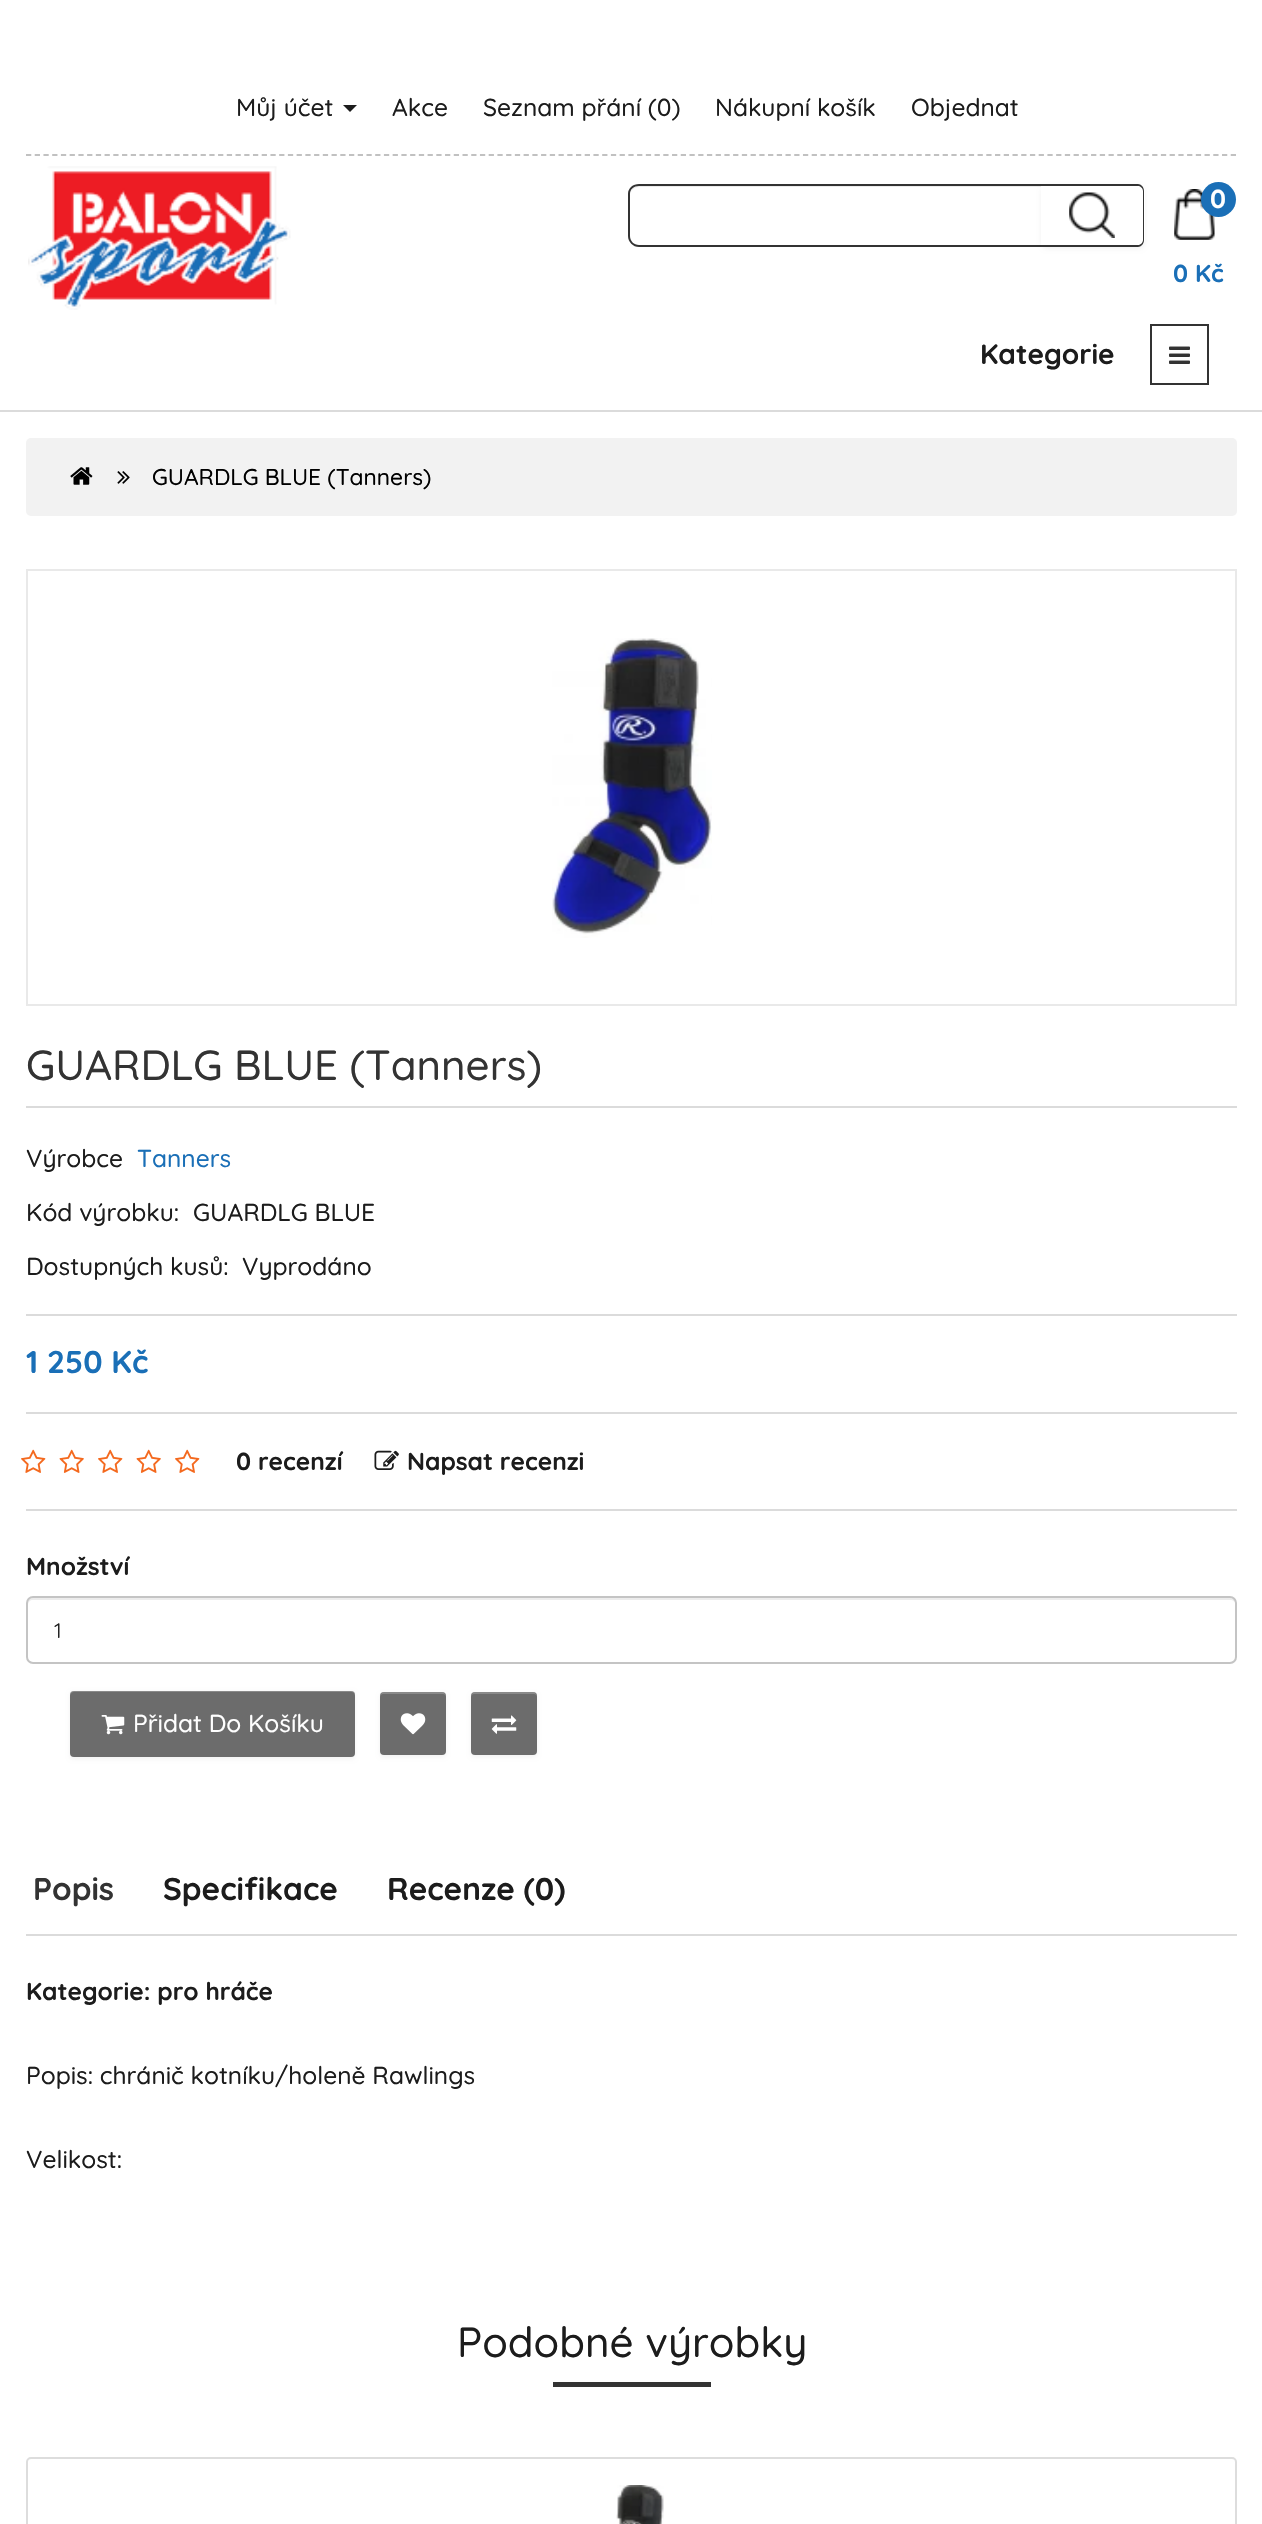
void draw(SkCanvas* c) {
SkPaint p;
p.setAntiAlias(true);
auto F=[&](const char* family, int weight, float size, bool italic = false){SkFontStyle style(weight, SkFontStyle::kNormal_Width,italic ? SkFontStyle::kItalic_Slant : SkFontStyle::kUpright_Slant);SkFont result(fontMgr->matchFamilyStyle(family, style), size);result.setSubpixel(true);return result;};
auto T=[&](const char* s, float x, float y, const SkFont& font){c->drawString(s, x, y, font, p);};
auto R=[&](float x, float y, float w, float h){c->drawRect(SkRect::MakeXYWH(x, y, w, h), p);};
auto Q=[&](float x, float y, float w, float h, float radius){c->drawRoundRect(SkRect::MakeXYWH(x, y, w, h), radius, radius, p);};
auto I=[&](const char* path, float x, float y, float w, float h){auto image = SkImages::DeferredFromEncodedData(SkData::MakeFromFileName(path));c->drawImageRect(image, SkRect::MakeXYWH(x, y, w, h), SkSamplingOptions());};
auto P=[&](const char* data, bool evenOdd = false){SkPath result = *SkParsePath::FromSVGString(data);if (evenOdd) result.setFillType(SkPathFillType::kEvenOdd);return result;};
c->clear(0xffffffff);
p.setColor(0xffdbdbdb);
R(0,410,1262,2);
p.setStroke(true);
p.setStrokeWidth(1.8);
p.setColor(0xffc1c1c1);
p.setPathEffect(SkDashPathEffect::Make({{5.25f,3.48f}}, 0));
c->drawPath(P("M26 155h1211"),p);
p.setPathEffect(nullptr);
auto f1 = F("Quicksand",500,24.5);
p.setStroke(false);
p.setColor(0xff1c1c1c);
T("Můj účet",236,116,f1);
c->drawPath(P("M343 105h14l-7 7z"),p);
T("Akce",392,116,f1);
T("Seznam přání (0)",483,116,f1);
T("Nákupní košík",715,116,f1);
T("Objednat",911,116,f1);
I("1.png",28,166,263,144);
p.setColor(0xffececec);
c->drawPath(P("M639 187h404v-1h-404c-6 0-9 5-9 10c0-5 4-9 9-9z"),p);
p.setColor(0xff333333);
c->drawPath(P("M639 184h404v63h-404c-6 0-11-5-11-11v-42c0-6 5-10 11-10zm0 2h404v59h-404c-5 0-9-4-9-9v-42c0-5 4-8 9-8z",true),p);
p.setColor(0x0d000000);
p.setMaskFilter(SkMaskFilter::MakeBlur(kNormal_SkBlurStyle, 2));
c->drawRoundRect(SkRect::MakeXYWH(1041,186,104,63),7,7,p);
p.setMaskFilter(nullptr);
p.setColor(0xffffffff);
c->drawPath(P("M1041 184h97c4 0 7 3 7 7v49c0 4-3 7-7 7h-97z"),p);
p.setColor(0xff333333);
c->drawPath(P("M1041 184h97c3 0 6 3 6 7v49c0 4-3 7-6 7h-97zm0 2h97c2 0 5 2 5 5v49c0 3-3 5-5 5h-97z",true),p);
I("2.png",1069,192,46,46);
I("3.png",1174,189,41,51);
p.setColor(0xff1a6fb7);
c->drawCircle(1218.5,199.5,17.5,p);
auto f2 = F("Quicksand",700,26);
p.setColor(0xffffffff);
T("0",1210,208,f2);
auto f3 = F("Quicksand",700,24.5);
p.setColor(0xff1a6fb7);
T("0 Kč",1173,282,f3);
auto f4 = F("Quicksand",700,28);
p.setColor(0xff1c1c1c);
T("Kategorie",980,364,f4);
p.setStroke(true);
p.setStrokeWidth(2);
p.setColor(0xff333333);
c->drawRect(SkRect::MakeXYWH(1151,325,57,59),p);
I("4.png",1169,346,21,18);
p.setStroke(false);
p.setColor(0xfff2f2f2);
Q(26,438,1211,78,5);
I("5.png",70,467,23,18);
I("6.png",117,471,13,13);
auto f5 = F("Quicksand",500,22.75);
p.setColor(0xff000000);
T("GUARDLG BLUE (Tanners)",152,485,f5);
p.setStroke(true);
p.setColor(0xffe9e9e9);
c->drawRect(SkRect::MakeXYWH(27,570,1209,435),p);
I("7.png",552,638,160,300);
auto f6 = F("Quicksand",500,42);
p.setStroke(false);
p.setColor(0xff333333);
T("GUARDLG BLUE (Tanners)",26,1080,f6);
p.setColor(0xffdbdbdb);
R(26,1106,1211,2);
R(26,1314,1211,2);
p.setColor(0xff1c1c1c);
T("Výrobce",26,1167,f1);
p.setColor(0xff1a6fb7);
T("Tanners",137,1167,f1);
p.setColor(0xff1c1c1c);
T("Kód výrobku:",26,1221,f1);
T("GUARDLG BLUE",193,1221,f1);
T("Dostupných kusů:",26,1275,f1);
T("Vyprodáno",242,1275,f1);
auto f7 = F("Quicksand",700,31.5);
p.setColor(0xff1a6fb7);
T("1 250 Kč",26,1373,f7);
p.setColor(0xffdbdbdb);
R(26,1412,1211,2);
R(26,1509,1211,2);
I("8.png",21,1449,25,24);
I("9.png",59,1449,25,24);
I("8.png",98,1449,25,24);
I("9.png",136,1449,25,24);
I("8.png",175,1449,25,24);
p.setColor(0xff1c1c1c);
T("0 recenzí",236,1470,f3);
I("10.png",374,1450,25,20);
T("Napsat recenzi",407,1470,f3);
T("Množství",26,1575,f3);
p.setColor(0xffececec);
c->drawPath(P("M33 1600h1197c3 0 6 2 6 5v-2c0-3-2-5-5-5h-1198c-3 0-5 2-5 5v2c0-3 2-5 5-5z"),p);
p.setStroke(true);
p.setColor(0xffc4c4c4);
c->drawRoundRect(SkRect::MakeXYWH(27,1597,1209,66),6,6,p);
auto f8 = F("Quicksand",400,21);
p.setStroke(false);
p.setColor(0xff1c1c1c);
T("1",54,1638,f8);
p.setColor(0x0d000000);
p.setMaskFilter(SkMaskFilter::MakeBlur(kNormal_SkBlurStyle, 2));
c->drawRoundRect(SkRect::MakeXYWH(70,1692,285,67),4,4,p);
p.setMaskFilter(nullptr);
p.setColor(0xff6c6c6c);
Q(70,1691,285,66,4);
p.setColor(0x33ffffff);
c->drawPath(P("M74 1692h278l2 1l1 3c0-3-1-5-4-5h-277c-3 0-4 2-4 5c0-2 2-4 4-4z"),p);
I("11.png",101,1715,24,20);
p.setColor(0xffffffff);
T("Přidat Do Košíku",133,1732,f1);
p.setColor(0x0d000000);
p.setMaskFilter(SkMaskFilter::MakeBlur(kNormal_SkBlurStyle, 2));
c->drawRoundRect(SkRect::MakeXYWH(380,1694,66,63),4,4,p);
p.setMaskFilter(nullptr);
p.setColor(0xff6c6c6c);
Q(380,1692,66,63,4);
p.setColor(0x33ffffff);
c->drawPath(P("M383 1694h60c2 0 3 2 3 4c0-8-6-6-14-6h-38c-8 0-14-2-14 6c0-2 1-4 3-4z"),p);
I("12.png",400,1713,26,22);
p.setColor(0x0d000000);
p.setMaskFilter(SkMaskFilter::MakeBlur(kNormal_SkBlurStyle, 2));
c->drawRoundRect(SkRect::MakeXYWH(471,1694,66,63),4,4,p);
p.setMaskFilter(nullptr);
p.setColor(0xff6c6c6c);
Q(471,1692,66,63,4);
p.setColor(0x33ffffff);
c->drawPath(P("M474 1694h60c2 0 3 2 3 4c0-8-6-6-14-6h-38c-8 0-14-2-14 6c0-2 1-4 3-4z"),p);
I("13.png",491,1715,26,19);
p.setColor(0xff333333);
T("Popis",33,1900,f7);
p.setColor(0xff1c1c1c);
T("Specifikace",163,1900,f7);
T("Recenze (0)",387,1900,f7);
p.setColor(0xffdbdbdb);
R(26,1934,1211,2);
p.setColor(0xff1c1c1c);
T("Kategorie: pro hráče",26,2000,f3);
T("Popis: chránič kotníku/holeně Rawlings",26,2084,f1);
T("Velikost:",26,2168,f1);
T("Podobné výrobky",457,2357,f6);
p.setColor(0xff333333);
R(553,2382,158,5);
p.setStroke(true);
p.setColor(0xffdddddd);
c->drawRoundRect(SkRect::MakeXYWH(27,2458,1209,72),4,4,p);
I("14.png",616,2485,48,39);
}
